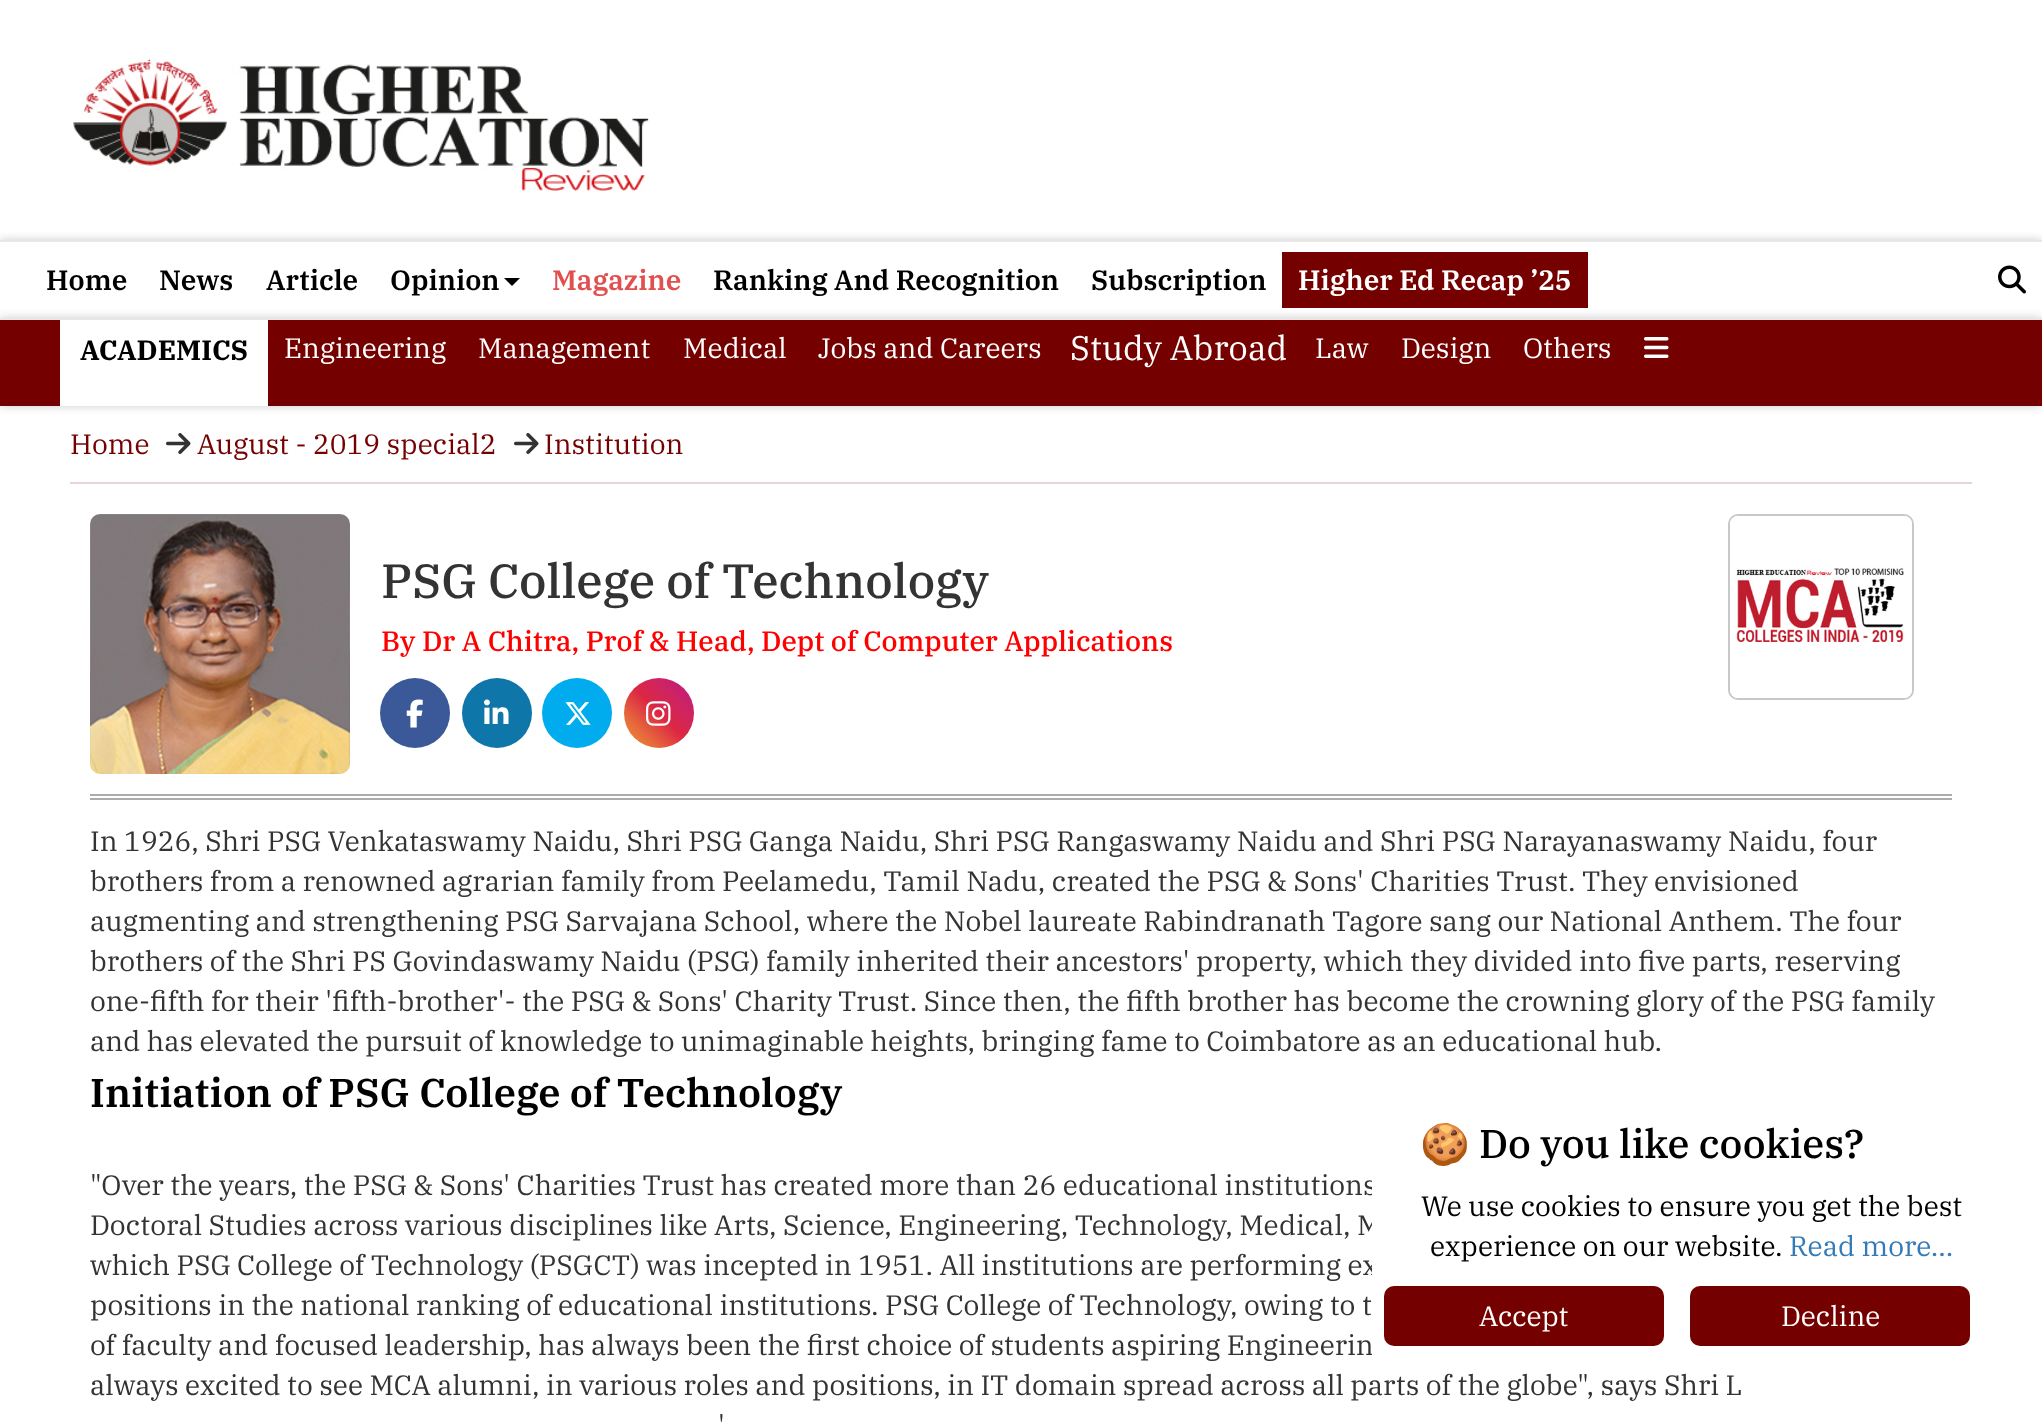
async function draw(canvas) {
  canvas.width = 2042
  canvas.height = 1425
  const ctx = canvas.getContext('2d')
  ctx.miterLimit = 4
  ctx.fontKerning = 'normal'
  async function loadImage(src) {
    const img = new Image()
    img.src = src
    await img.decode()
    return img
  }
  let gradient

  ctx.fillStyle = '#fff'
  ctx.fillRect(0, 0, 2042, 1425)
  ctx.drawImage(await loadImage('image0.png'), 73, 58, 576, 134)
  ctx.save()
  ctx.beginPath()
  ctx.rect(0, 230, 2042, 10)
  ctx.clip()
  ctx.fillStyle = '#ccc'
  ctx.filter = 'blur(5px)'
  ctx.beginPath()
  ctx.rect(0, 240, 2042, 78)
  ctx.fill()
  ctx.filter = 'none'
  ctx.restore()
  ctx.fillStyle = '#e7e7e7'
  ctx.fillRect(0, 240, 2042, 2)
  ctx.font = '600 28px IBM Plex Serif'
  ctx.fillStyle = '#000'
  ctx.fillText('Home', 46, 290)
  ctx.fillText('News', 159, 290)
  ctx.fillText('Article', 266, 290)
  ctx.fillText('Opinion', 390, 290)
  ctx.beginPath()
  ctx.moveTo(504, 278)
  ctx.lineTo(520, 278)
  ctx.lineTo(512, 286)
  ctx.closePath()
  ctx.fill()
  ctx.fillStyle = '#e14f4f'
  ctx.fillText('Magazine', 552, 290)
  ctx.fillStyle = '#000'
  ctx.fillText('Ranking And Recognition', 713, 290)
  ctx.fillText('Subscription', 1091, 290)
  ctx.fillStyle = '#750000'
  ctx.fillRect(1282, 252, 306, 56)
  ctx.fillStyle = '#fff'
  ctx.fillText('Higher Ed Recap ’25', 1298, 290)
  ctx.drawImage(await loadImage('image1.png'), 1998, 265, 28, 29)
  ctx.fillStyle = '#ccc'
  ctx.filter = 'blur(5px)'
  ctx.beginPath()
  ctx.rect(0, 318, 2042, 88)
  ctx.fill()
  ctx.filter = 'none'
  ctx.fillStyle = '#750000'
  ctx.fillRect(0, 320, 2042, 86)
  ctx.fillStyle = '#e7e7e7'
  ctx.fillRect(0, 318, 2042, 2)
  ctx.fillStyle = '#fff'
  ctx.fillRect(60, 320, 208, 86)
  ctx.font = 'bold 28px IBM Plex Serif'
  ctx.fillStyle = '#000'
  ctx.fillText('ACADEMICS', 80, 360)
  ctx.font = '28px IBM Plex Serif'
  ctx.fillStyle = '#fff'
  ctx.fillText('Engineering', 284, 358)
  ctx.fillText('Management', 478, 358)
  ctx.fillText('Medical', 683, 358)
  ctx.fillText('Jobs and Careers', 818, 358)
  ctx.font = '34px IBM Plex Serif'
  ctx.fillText('Study Abroad', 1070, 360)
  ctx.font = '28px IBM Plex Serif'
  ctx.fillText('Law', 1315, 358)
  ctx.fillText('Design', 1401, 358)
  ctx.fillText('Others', 1523, 358)
  ctx.drawImage(await loadImage('image2.png'), 1644, 337, 25, 21)
  ctx.fillStyle = '#e8d4d4'
  ctx.fillRect(70, 482, 1902, 2)
  ctx.fillStyle = '#750000'
  ctx.fillText('Home', 70, 454)
  ctx.drawImage(await loadImage('image3.png'), 166, 433, 25, 21)
  ctx.fillText('August - 2019 special2', 197, 454)
  ctx.drawImage(await loadImage('image3.png'), 514, 433, 25, 21)
  ctx.fillText('Institution', 544, 454)
  ctx.fillStyle = '#acacac'
  ctx.fillRect(90, 794, 1862, 2)
  ctx.fillRect(90, 798, 1862, 2)
  ctx.drawImage(await loadImage('image4.png'), 90, 514, 260, 260)
  ctx.font = '500 48px IBM Plex Serif'
  ctx.fillStyle = '#333'
  ctx.fillText('PSG College of Technology', 381, 598)
  ctx.font = '500 28px IBM Plex Serif'
  ctx.fillStyle = '#f00'
  ctx.fillText('By Dr A Chitra, Prof & Head, Dept of Computer Applications', 381, 651)
  ctx.fillStyle = '#3b5998'
  ctx.beginPath()
  ctx.arc(415, 713, 35, 0, 2 * Math.PI)
  ctx.fill()
  ctx.drawImage(await loadImage('image5.png'), 406, 699, 17, 29)
  ctx.fillStyle = '#0e76a8'
  ctx.beginPath()
  ctx.arc(497, 713, 35, 0, 2 * Math.PI)
  ctx.fill()
  ctx.drawImage(await loadImage('image6.png'), 484, 699, 25, 25)
  ctx.fillStyle = '#00acee'
  ctx.beginPath()
  ctx.arc(577, 713, 35, 0, 2 * Math.PI)
  ctx.fill()
  ctx.drawImage(await loadImage('image7.png'), 565, 702, 26, 23)
  gradient = ctx.createLinearGradient(624, 748, 694, 678)
  gradient.addColorStop(0, '#f09433')
  gradient.addColorStop(0.25, '#e6683c')
  gradient.addColorStop(0.5, '#dc2743')
  gradient.addColorStop(0.75, '#cc2366')
  gradient.addColorStop(1, '#bc1888')
  ctx.fillStyle = gradient
  ctx.beginPath()
  ctx.arc(659, 713, 35, 0, 2 * Math.PI)
  ctx.fill()
  ctx.drawImage(await loadImage('image8.png'), 646, 701, 25, 25)
  ctx.beginPath()
  ctx.roundRect(1729, 515, 184, 184, 9)
  ctx.strokeStyle = '#c9c8c8'
  ctx.lineWidth = 2
  ctx.stroke()
  ctx.drawImage(await loadImage('image9.png'), 1730, 516, 182, 182)
  ctx.font = '28px IBM Plex Serif'
  ctx.fillStyle = '#333'
  ctx.fillText('In 1926, Shri PSG Venkataswamy Naidu, Shri PSG Ganga Naidu, Shri PSG Rangaswamy Naidu and Shri PSG Narayanaswamy Naidu, four', 90, 851)
  ctx.fillText('brothers from a renowned agrarian family from Peelamedu, Tamil Nadu, created the PSG & Sons\' Charities Trust. They envisioned', 90, 891)
  ctx.fillText('augmenting and strengthening PSG Sarvajana School, where the Nobel laureate Rabindranath Tagore sang our National Anthem. The four', 90, 931)
  ctx.fillText('brothers of the Shri PS Govindaswamy Naidu (PSG) family inherited their ancestors\' property, which they divided into five parts, reserving', 90, 971)
  ctx.fillText('one-fifth for their \'fifth-brother\'- the PSG & Sons\' Charity Trust. Since then, the fifth brother has become the crowning glory of the PSG family', 90, 1011)
  ctx.fillText('and has elevated the pursuit of knowledge to unimaginable heights, bringing fame to Coimbatore as an educational hub.', 90, 1051)
  ctx.font = '600 40px IBM Plex Serif'
  ctx.fillStyle = '#000'
  ctx.fillText('Initiation of PSG College of Technology', 90, 1107)
  ctx.font = '28px IBM Plex Serif'
  ctx.fillStyle = '#333'
  ctx.fillText('"Over the years, the PSG & Sons\' Charities Trust has created more than 26 educational institutions', 90, 1195)
  ctx.fillText('Doctoral Studies across various disciplines like Arts, Science, Engineering, Technology, Medical, M', 90, 1235)
  ctx.fillText('which PSG College of Technology (PSGCT) was incepted in 1951. All institutions are performing ex', 90, 1275)
  ctx.fillText('positions in the national ranking of educational institutions. PSG College of Technology, owing to t', 90, 1315)
  ctx.fillText('of faculty and focused leadership, has always been the first choice of students aspiring Engineerin', 90, 1355)
  ctx.fillText('always excited to see MCA alumni, in various roles and positions, in IT domain spread across all parts of the globe", says Shri L', 90, 1395)
  ctx.fillText('\'', 718, 1435)
  ctx.fillStyle = '#fff'
  ctx.fillRect(1372, 1180, 8, 175)
  ctx.font = '40px Noto Color Emoji'
  ctx.fillStyle = '#000'
  ctx.fillText('🍪', 1420, 1158)
  ctx.font = '500 40px IBM Plex Serif'
  ctx.fillText('Do you like cookies?', 1479, 1158)
  ctx.font = '28px IBM Plex Serif'
  ctx.fillText('We use cookies to ensure you get the best', 1421, 1216)
  ctx.fillText('experience on our website.', 1430, 1256)
  ctx.fillStyle = '#337ab7'
  ctx.fillText('Read more...', 1789, 1256)
  ctx.fillStyle = '#750000'
  ctx.beginPath()
  ctx.roundRect(1384, 1286, 280, 60, 10)
  ctx.fill()
  ctx.fillStyle = '#fff'
  ctx.fillText('Accept', 1479, 1326)
  ctx.fillStyle = '#750000'
  ctx.beginPath()
  ctx.roundRect(1690, 1286, 280, 60, 10)
  ctx.fill()
  ctx.fillStyle = '#fff'
  ctx.fillText('Decline', 1781, 1326)
}

draw(document.querySelector('canvas'))
